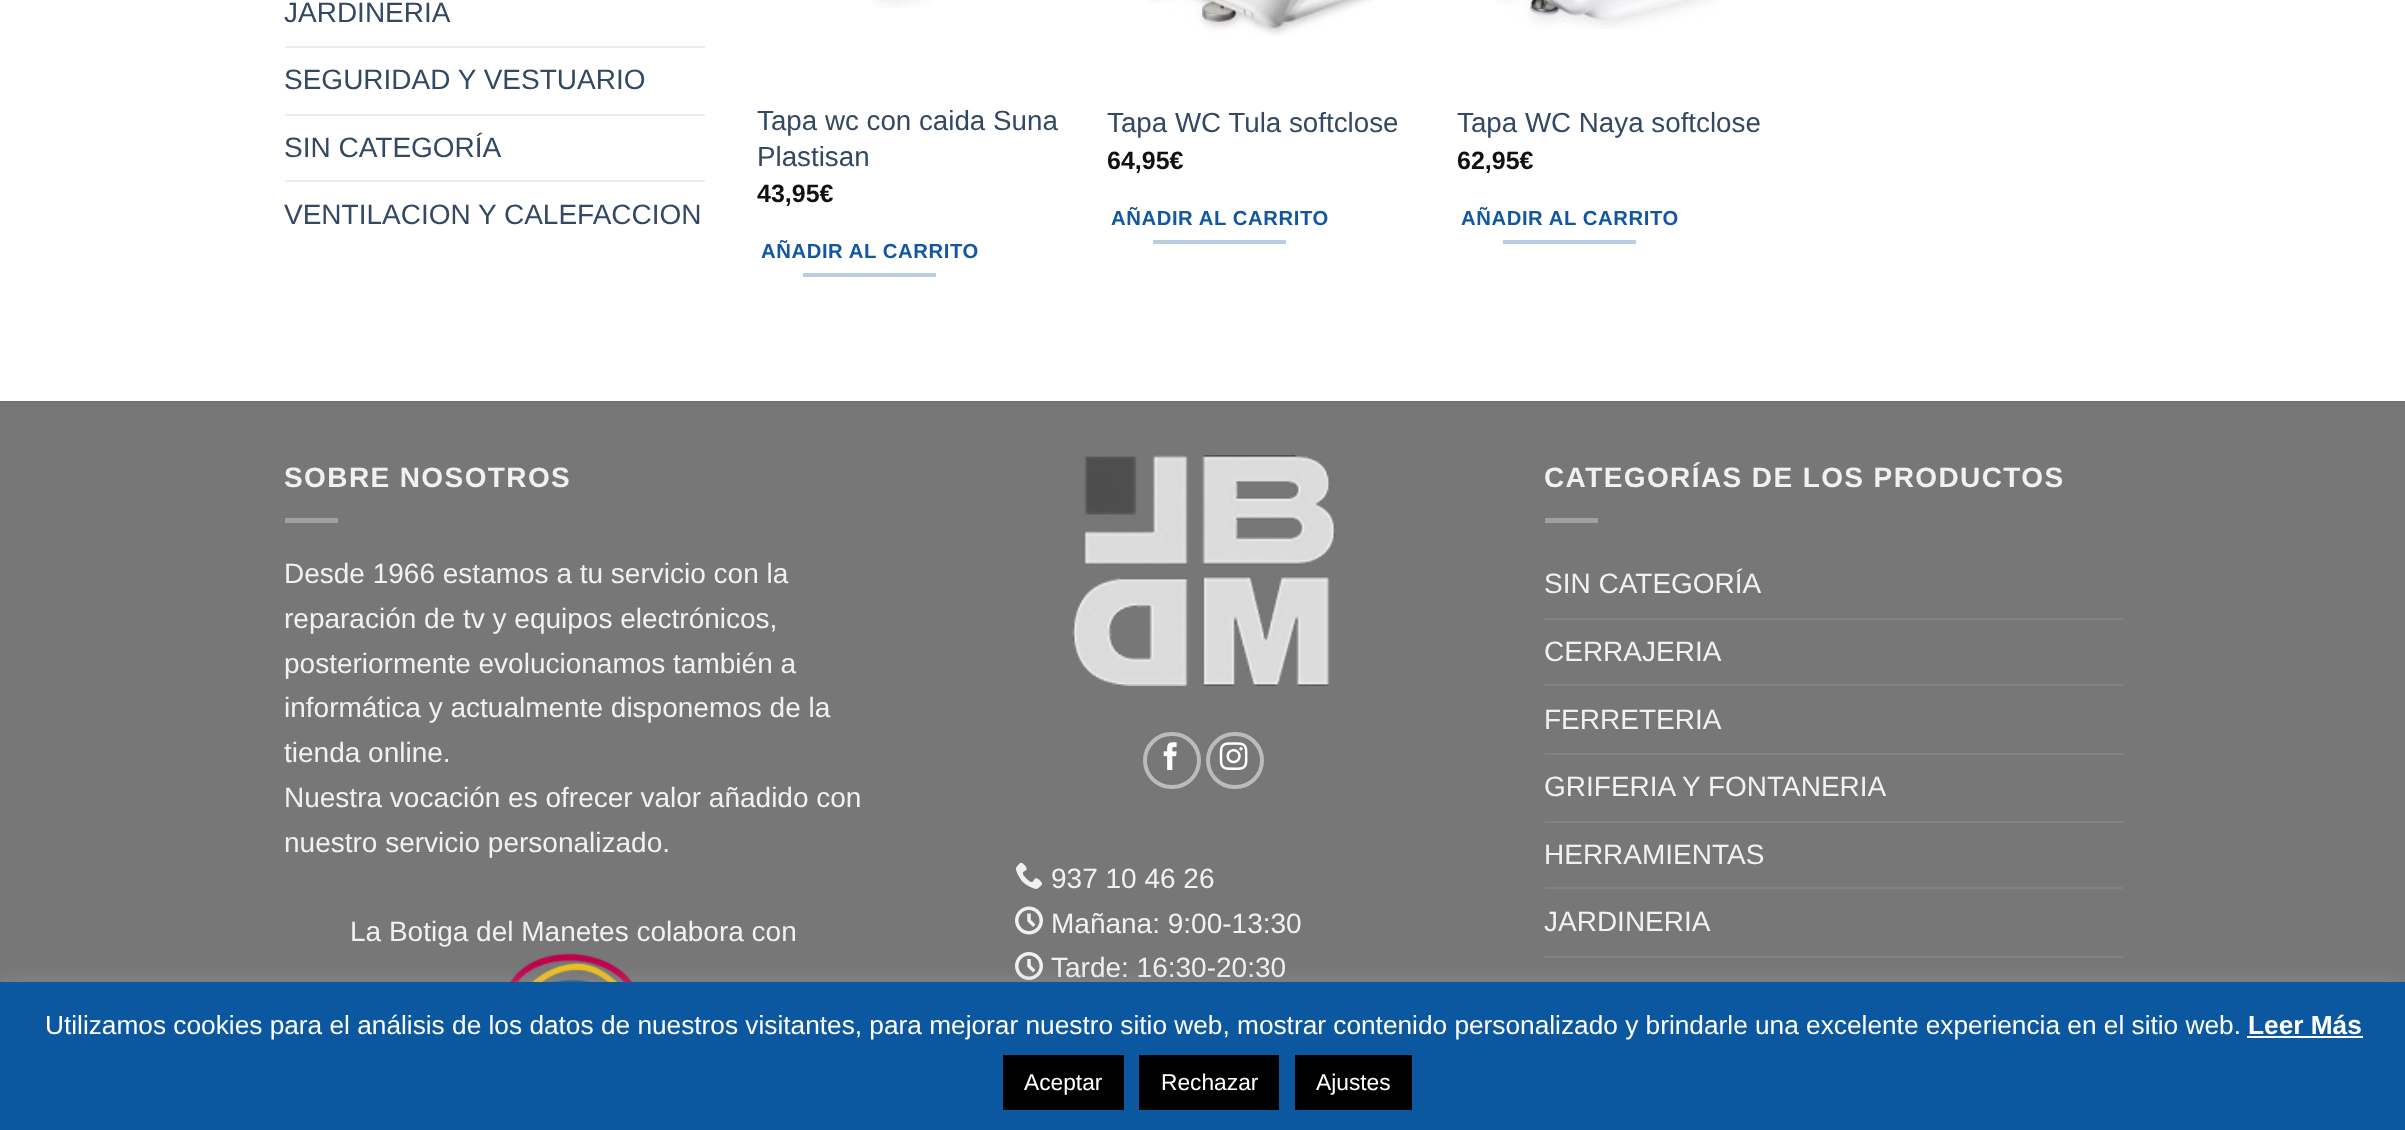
async function draw(canvas) {
  canvas.width = 2405
  canvas.height = 1130
  const ctx = canvas.getContext('2d')
  ctx.miterLimit = 4
  ctx.fontKerning = 'normal'
  async function loadImage(src) {
    const img = new Image()
    img.src = src
    await img.decode()
    return img
  }

  ctx.fillStyle = '#fff'
  ctx.fillRect(0, 0, 2405, 1130)
  ctx.font = '28px Liberation Sans'
  ctx.fillStyle = '#334862'
  ctx.fillText('JARDINERIA', 284, 22)
  ctx.fillStyle = '#ececec'
  ctx.fillRect(285, 46, 420, 2)
  ctx.fillStyle = '#334862'
  ctx.fillText('SEGURIDAD Y VESTUARIO', 284, 89)
  ctx.fillStyle = '#ececec'
  ctx.fillRect(285, 114, 420, 2)
  ctx.fillStyle = '#334862'
  ctx.fillText('SIN CATEGORÍA', 284, 157)
  ctx.fillStyle = '#ececec'
  ctx.fillRect(285, 180, 420, 2)
  ctx.fillStyle = '#334862'
  ctx.fillText('VENTILACION Y CALEFACCION', 284, 224)
  ctx.drawImage(await loadImage('image0.png'), 872, 0, 61, 8)
  ctx.font = '27.75px Liberation Sans'
  ctx.fillText('Tapa wc con caida Suna', 757, 130)
  ctx.fillText('Plastisan', 757, 166)
  ctx.font = 'bold 25px Liberation Sans'
  ctx.fillStyle = '#111'
  ctx.fillText('43,95€', 757, 202)
  ctx.letterSpacing = '0.6px'
  ctx.font = 'bold 20.25px Liberation Sans'
  ctx.fillStyle = '#1157a2'
  ctx.fillText('AÑADIR AL CARRITO', 761, 258)
  ctx.fillStyle = '#b8cde3'
  ctx.fillRect(803, 273, 133, 4)
  ctx.drawImage(await loadImage('image1.png'), 1148, 0, 227, 36)
  ctx.letterSpacing = '0px'
  ctx.font = '27.75px Liberation Sans'
  ctx.fillStyle = '#334862'
  ctx.fillText('Tapa WC Tula softclose', 1107, 132)
  ctx.font = 'bold 25px Liberation Sans'
  ctx.fillStyle = '#111'
  ctx.fillText('64,95€', 1107, 169)
  ctx.letterSpacing = '0.6px'
  ctx.font = 'bold 20.25px Liberation Sans'
  ctx.fillStyle = '#1157a2'
  ctx.fillText('AÑADIR AL CARRITO', 1111, 225)
  ctx.fillStyle = '#b8cde3'
  ctx.fillRect(1153, 240, 133, 4)
  ctx.drawImage(await loadImage('image2.png'), 1496, 0, 222, 29)
  ctx.letterSpacing = '0px'
  ctx.font = '27.75px Liberation Sans'
  ctx.fillStyle = '#334862'
  ctx.fillText('Tapa WC Naya softclose', 1457, 132)
  ctx.font = 'bold 25px Liberation Sans'
  ctx.fillStyle = '#111'
  ctx.fillText('62,95€', 1457, 169)
  ctx.letterSpacing = '0.6px'
  ctx.font = 'bold 20.25px Liberation Sans'
  ctx.fillStyle = '#1157a2'
  ctx.fillText('AÑADIR AL CARRITO', 1461, 225)
  ctx.fillStyle = '#b8cde3'
  ctx.fillRect(1503, 240, 133, 4)
  ctx.fillStyle = '#777'
  ctx.fillRect(0, 403, 2405, 579)
  ctx.fillStyle = '#717171'
  ctx.fillRect(0, 401, 2405, 2)
  ctx.letterSpacing = '1.4px'
  ctx.font = 'bold 28px Liberation Sans'
  ctx.fillStyle = '#f1f1f1'
  ctx.fillText('SOBRE NOSOTROS', 284, 487)
  ctx.fillStyle = '#a0a0a0'
  ctx.fillRect(285, 518, 53, 5)
  ctx.letterSpacing = '0px'
  ctx.font = '28px Liberation Sans'
  ctx.fillStyle = '#f1f1f1'
  ctx.fillText('Desde 1966 estamos a tu servicio con la', 284, 583)
  ctx.fillText('reparación de tv y equipos electrónicos,', 284, 628)
  ctx.fillText('posteriormente evolucionamos también a', 284, 673)
  ctx.fillText('informática y actualmente disponemos de la', 284, 717)
  ctx.fillText('tienda online.', 284, 762)
  ctx.fillText('Nuestra vocación es ofrecer valor añadido con', 284, 807)
  ctx.fillText('nuestro servicio personalizado.', 284, 852)
  ctx.fillText('La Botiga del Manetes colabora con', 350, 941)
  ctx.drawImage(await loadImage('image3.png'), 509, 953, 124, 29)
  ctx.drawImage(await loadImage('image4.png'), 1072, 455, 264, 231)
  ctx.beginPath()
  ctx.roundRect(1145, 734, 54, 53, 26.5)
  ctx.strokeStyle = '#bbb'
  ctx.lineWidth = 4
  ctx.stroke()
  ctx.drawImage(await loadImage('image5.png'), 1163, 742, 14, 28)
  ctx.beginPath()
  ctx.roundRect(1208, 734, 54, 53, 26.5)
  ctx.stroke()
  ctx.drawImage(await loadImage('image6.png'), 1219, 742, 29, 28)
  ctx.drawImage(await loadImage('image7.png'), 1015, 862, 28, 27)
  ctx.fillText('937 10 46 26', 1051, 888)
  ctx.drawImage(await loadImage('image8.png'), 1015, 906, 28, 29)
  ctx.fillText('Mañana: 9:00-13:30', 1051, 933)
  ctx.drawImage(await loadImage('image9.png'), 1015, 952, 28, 28)
  ctx.fillText('Tarde: 16:30-20:30', 1051, 977)
  ctx.letterSpacing = '1.4px'
  ctx.font = 'bold 28px Liberation Sans'
  ctx.fillText('CATEGORÍAS DE LOS PRODUCTOS', 1544, 487)
  ctx.fillStyle = '#a0a0a0'
  ctx.fillRect(1545, 518, 53, 5)
  ctx.letterSpacing = '0px'
  ctx.font = '28px Liberation Sans'
  ctx.fillStyle = '#f1f1f1'
  ctx.fillText('SIN CATEGORÍA', 1544, 593)
  ctx.fillStyle = '#828282'
  ctx.fillRect(1545, 618, 578, 2)
  ctx.fillStyle = '#f1f1f1'
  ctx.fillText('CERRAJERIA', 1544, 661)
  ctx.fillStyle = '#828282'
  ctx.fillRect(1545, 684, 578, 2)
  ctx.fillStyle = '#f1f1f1'
  ctx.fillText('FERRETERIA', 1544, 729)
  ctx.fillStyle = '#828282'
  ctx.fillRect(1545, 753, 578, 2)
  ctx.fillStyle = '#f1f1f1'
  ctx.fillText('GRIFERIA Y FONTANERIA', 1544, 796)
  ctx.fillStyle = '#828282'
  ctx.fillRect(1545, 821, 578, 2)
  ctx.fillStyle = '#f1f1f1'
  ctx.fillText('HERRAMIENTAS', 1544, 864)
  ctx.fillStyle = '#828282'
  ctx.fillRect(1545, 887, 578, 2)
  ctx.fillStyle = '#f1f1f1'
  ctx.fillText('JARDINERIA', 1544, 931)
  ctx.fillStyle = '#828282'
  ctx.fillRect(1545, 956, 578, 2)
  ctx.fillStyle = '#acabab4d'
  ctx.filter = 'blur(9px)'
  ctx.beginPath()
  ctx.rect(0, 980, 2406, 149)
  ctx.fill()
  ctx.filter = 'none'
  ctx.fillStyle = '#0b57a0'
  ctx.fillRect(0, 982, 2405, 148)
  ctx.font = '26.25px Liberation Sans'
  ctx.fillStyle = '#fff'
  ctx.fillText('Utilizamos cookies para el análisis de los datos de nuestros visitantes, para mejorar nuestro sitio web, mostrar contenido personalizado y brindarle una excelente experiencia en el sitio web.', 45, 1034)
  ctx.font = 'bold 26.25px Liberation Sans'
  ctx.fillText('Leer Más', 2248, 1034)
  ctx.fillRect(2247, 1036, 116, 2)
  ctx.fillStyle = '#000'
  ctx.fillRect(1003, 1055, 121, 55)
  ctx.font = '22.75px Liberation Sans'
  ctx.fillStyle = '#fff'
  ctx.fillText('Aceptar', 1024, 1090)
  ctx.fillStyle = '#000'
  ctx.fillRect(1139, 1055, 140, 55)
  ctx.fillStyle = '#fff'
  ctx.fillText('Rechazar', 1161, 1090)
  ctx.fillStyle = '#000'
  ctx.fillRect(1295, 1055, 117, 55)
  ctx.fillStyle = '#fff'
  ctx.fillText('Ajustes', 1316, 1090)
}

draw(document.querySelector('canvas'))
